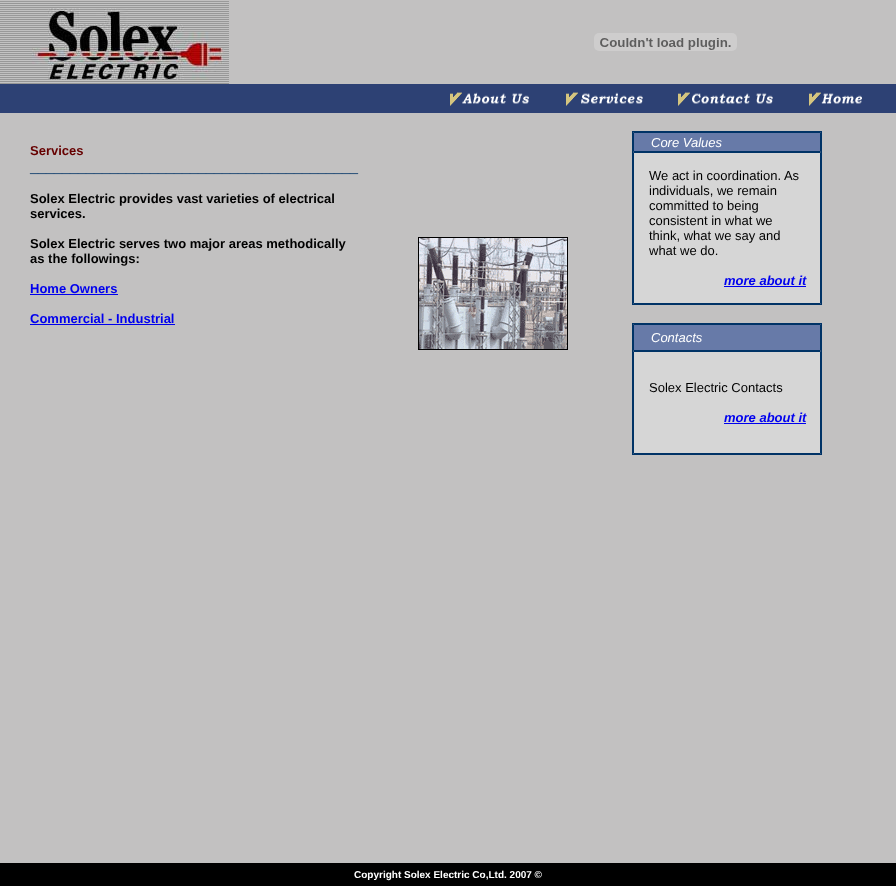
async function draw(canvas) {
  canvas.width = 896
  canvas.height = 886
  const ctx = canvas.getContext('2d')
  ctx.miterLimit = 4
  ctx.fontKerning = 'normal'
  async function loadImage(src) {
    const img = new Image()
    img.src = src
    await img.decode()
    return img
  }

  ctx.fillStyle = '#c2c1c1'
  ctx.fillRect(0, 0, 896, 886)
  ctx.drawImage(await loadImage('image0.png'), 0, 1, 229, 83)
  ctx.drawImage(await loadImage('image1.png'), 594, 33, 143, 18)
  ctx.fillStyle = '#2d4174'
  ctx.fillRect(0, 84, 896, 29)
  ctx.drawImage(await loadImage('image2.png'), 450, 92, 79, 14)
  ctx.drawImage(await loadImage('image3.png'), 566, 92, 77, 14)
  ctx.drawImage(await loadImage('image4.png'), 678, 92, 95, 14)
  ctx.drawImage(await loadImage('image5.png'), 809, 92, 53, 14)
  ctx.font = 'bold 13px Liberation Sans'
  ctx.fillStyle = '#600'
  ctx.fillText('Services', 30, 155)
  ctx.font = '16px Liberation Serif'
  ctx.fillStyle = '#036'
  ctx.fillText('_________________________________________', 30, 172)
  ctx.font = 'bold 13px Liberation Sans'
  ctx.fillStyle = '#000'
  ctx.fillText('Solex Electric provides vast varieties of electrical', 30, 203)
  ctx.fillText('services.', 30, 218)
  ctx.fillText('Solex Electric serves two major areas methodically', 30, 248)
  ctx.fillText('as the followings:', 30, 263)
  ctx.fillStyle = '#00e'
  ctx.fillText('Home Owners', 30, 293)
  ctx.fillRect(30, 294, 88, 1)
  ctx.fillText('Commercial - Industrial', 30, 323)
  ctx.fillRect(30, 324, 145, 1)
  ctx.drawImage(await loadImage('image6.png'), 418, 237, 150, 113)
  ctx.strokeStyle = '#036'
  ctx.strokeRect(632.5, 131.5, 189, 173)
  ctx.fillStyle = '#677aa8'
  ctx.beginPath()
  ctx.rect(633.5, 132.5, 187, 19)
  ctx.fill()
  ctx.stroke()
  ctx.font = 'italic 13px Liberation Sans'
  ctx.fillStyle = '#fff'
  ctx.fillText('Core Values', 651, 147)
  ctx.fillStyle = '#d6d6d6'
  ctx.beginPath()
  ctx.rect(633.5, 152.5, 187, 151)
  ctx.fill()
  ctx.stroke()
  ctx.font = '13px Liberation Sans'
  ctx.fillStyle = '#000'
  ctx.fillText('We act in coordination. As', 649, 180)
  ctx.fillText('individuals, we remain', 649, 195)
  ctx.fillText('committed to being', 649, 210)
  ctx.fillText('consistent in what we', 649, 225)
  ctx.fillText('think, what we say and', 649, 240)
  ctx.fillText('what we do.', 649, 255)
  ctx.font = 'italic bold 13px Liberation Sans'
  ctx.fillStyle = '#00e'
  ctx.fillText('more about it', 724, 285)
  ctx.fillRect(724, 286, 82, 1)
  ctx.strokeRect(632.5, 323.5, 189, 131)
  ctx.fillStyle = '#677aa8'
  ctx.beginPath()
  ctx.rect(633.5, 324.5, 187, 26)
  ctx.fill()
  ctx.stroke()
  ctx.font = 'italic 13px Liberation Sans'
  ctx.fillStyle = '#fff'
  ctx.fillText('Contacts', 651, 342)
  ctx.fillStyle = '#d6d6d6'
  ctx.beginPath()
  ctx.rect(633.5, 351.5, 187, 102)
  ctx.fill()
  ctx.stroke()
  ctx.font = '13px Liberation Sans'
  ctx.fillStyle = '#000'
  ctx.fillText('Solex Electric Contacts', 649, 392)
  ctx.font = 'italic bold 13px Liberation Sans'
  ctx.fillStyle = '#00e'
  ctx.fillText('more about it', 724, 422)
  ctx.fillRect(724, 423, 82, 1)
  ctx.fillStyle = '#000'
  ctx.fillRect(0, 863, 896, 23)
  ctx.font = 'bold 10px Liberation Sans'
  ctx.fillStyle = '#fff'
  ctx.fillText('Copyright Solex Electric Co,Ltd. 2007 ©', 354, 878)
}

draw(document.querySelector('canvas'))
